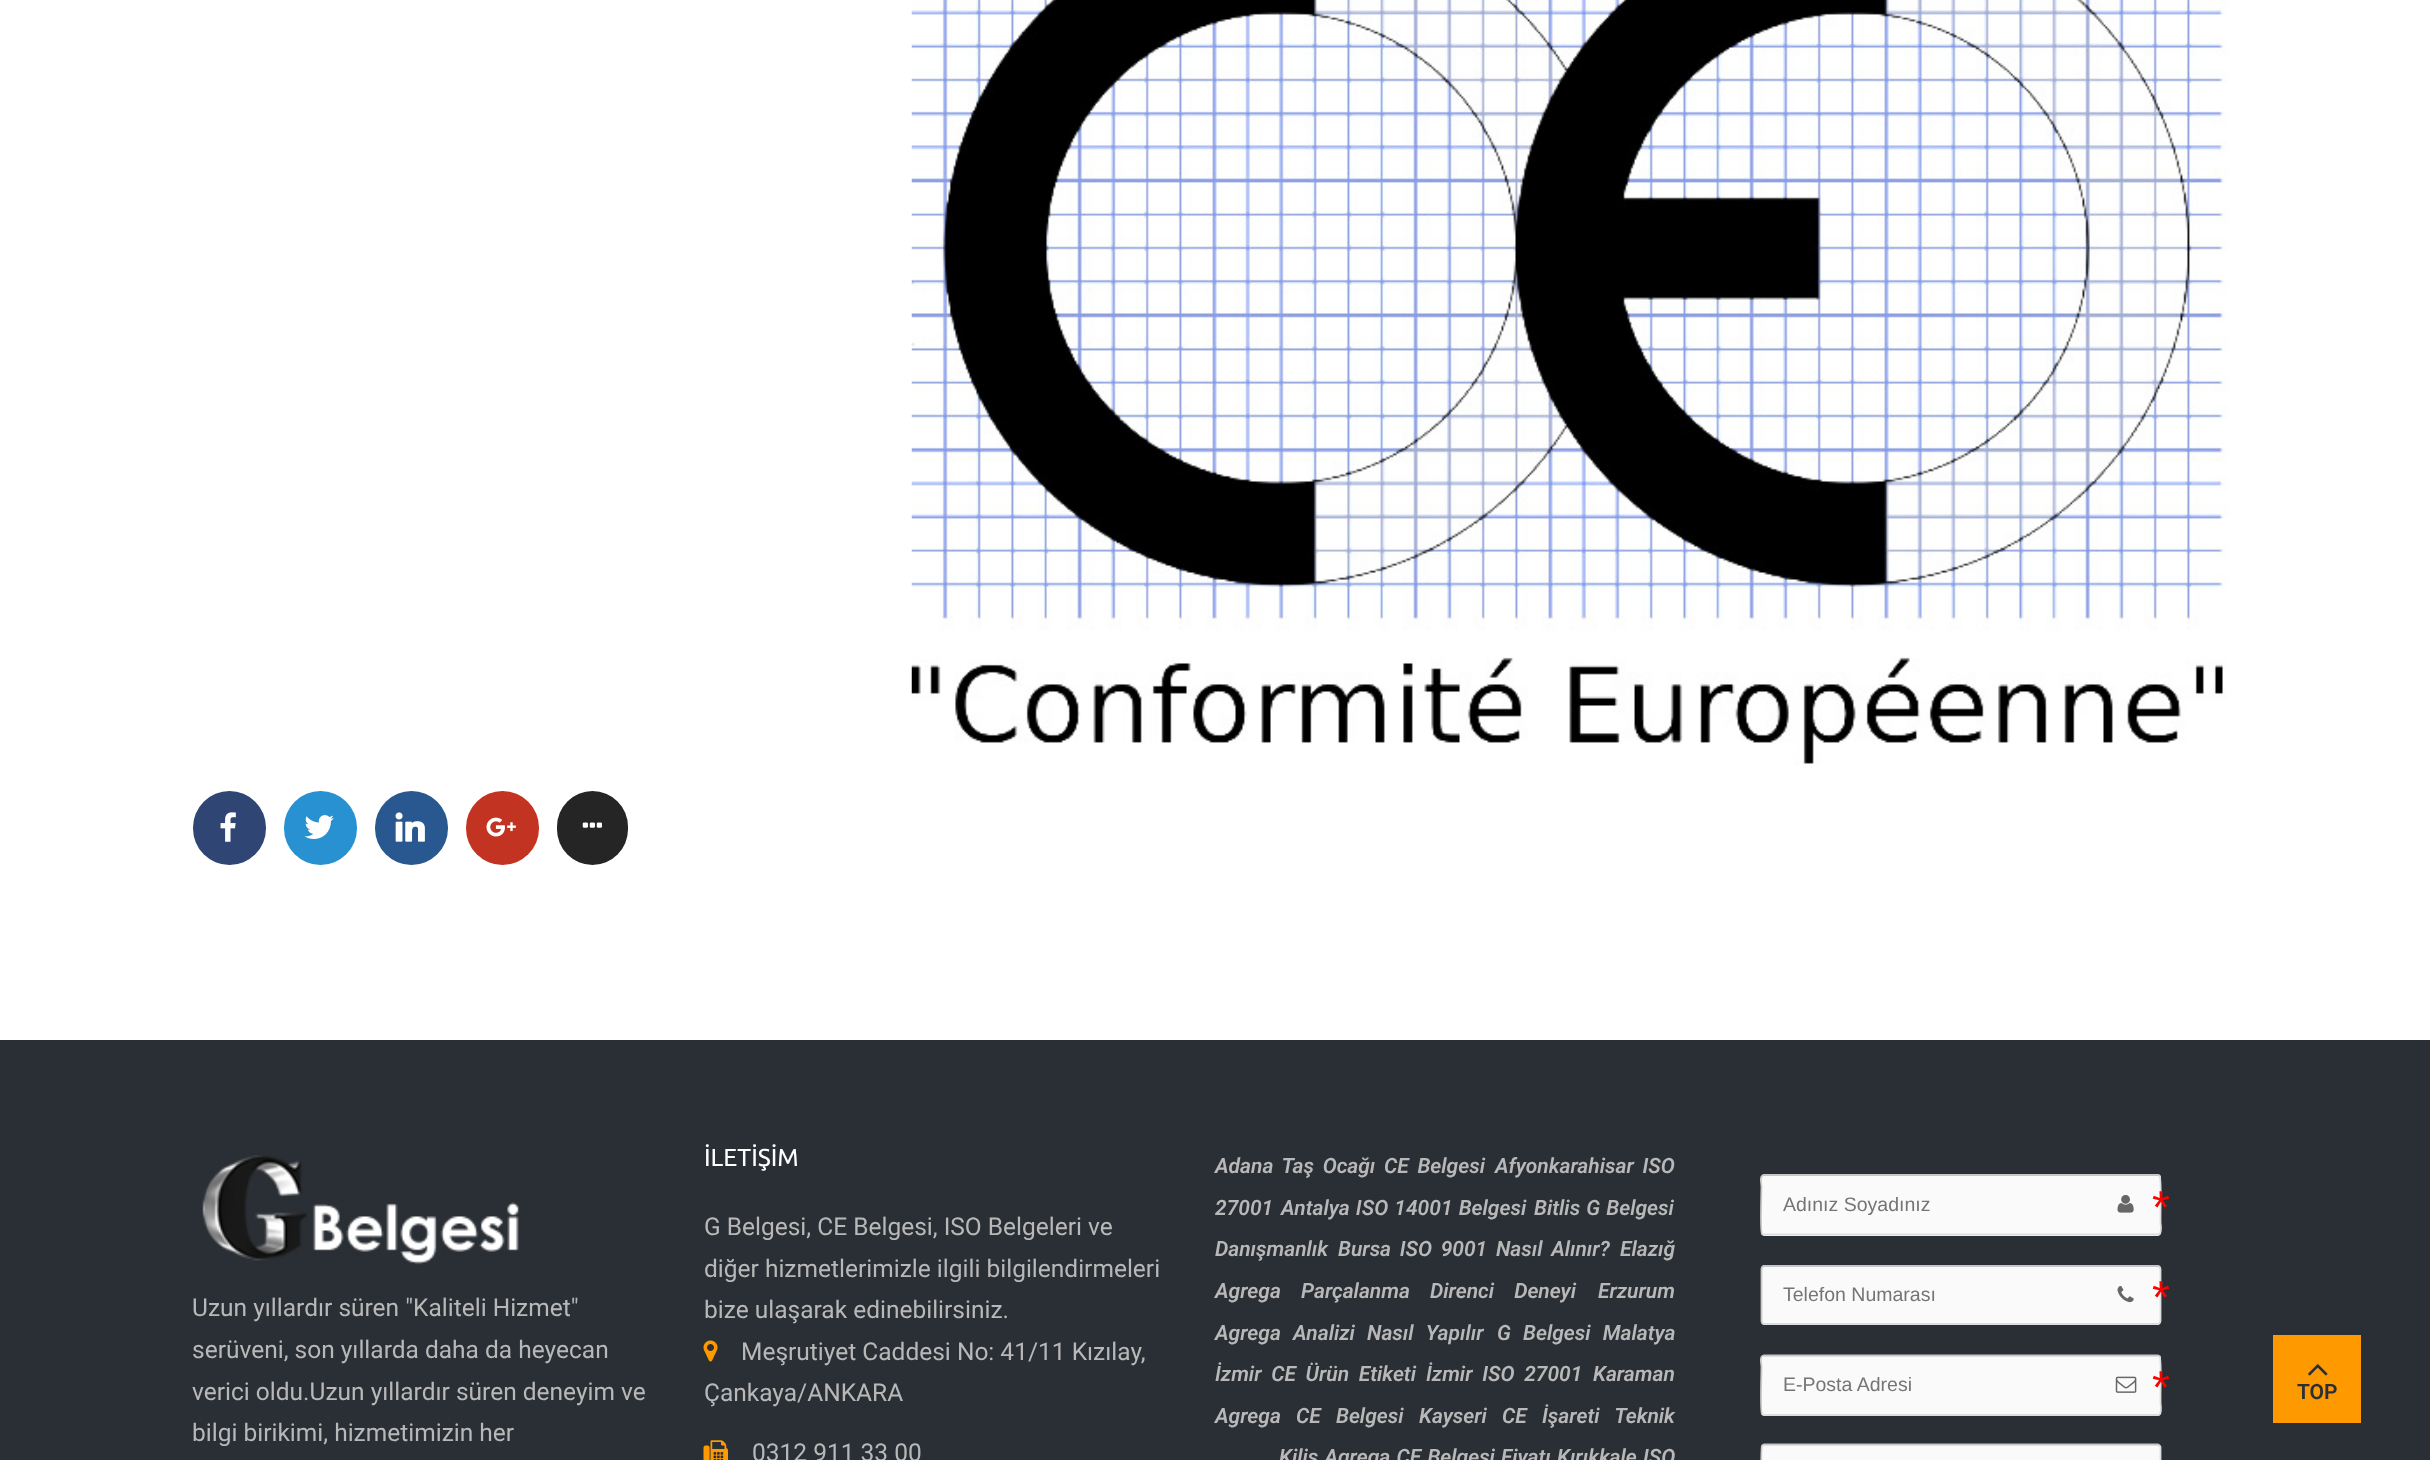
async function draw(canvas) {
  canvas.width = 2430
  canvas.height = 1460
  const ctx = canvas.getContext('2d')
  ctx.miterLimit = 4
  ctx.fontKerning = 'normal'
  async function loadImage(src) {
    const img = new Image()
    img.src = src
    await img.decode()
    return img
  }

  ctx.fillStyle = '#fff'
  ctx.fillRect(0, 0, 2430, 1460)
  ctx.drawImage(await loadImage('image0.png'), 911, 0, 1317, 765)
  ctx.fillStyle = '#2f4574'
  ctx.beginPath()
  ctx.roundRect(193, 791, 73, 74, 36.5)
  ctx.fill()
  ctx.drawImage(await loadImage('image1.png'), 220, 812, 16, 30)
  ctx.fillStyle = '#2791d1'
  ctx.beginPath()
  ctx.roundRect(284, 791, 73, 74, 36.5)
  ctx.fill()
  ctx.drawImage(await loadImage('image2.png'), 304, 815, 30, 24)
  ctx.fillStyle = '#28588f'
  ctx.beginPath()
  ctx.roundRect(375, 791, 73, 74, 36.5)
  ctx.fill()
  ctx.drawImage(await loadImage('image3.png'), 395, 812, 30, 30)
  ctx.fillStyle = '#c23321'
  ctx.beginPath()
  ctx.roundRect(466, 791, 73, 74, 36.5)
  ctx.fill()
  ctx.drawImage(await loadImage('image4.png'), 486, 817, 30, 20)
  ctx.fillStyle = '#252525'
  ctx.beginPath()
  ctx.roundRect(557, 791, 71, 74, 35.5)
  ctx.fill()
  ctx.drawImage(await loadImage('image5.png'), 582, 822, 20, 6)
  ctx.fillStyle = '#2a2f35'
  ctx.fillRect(0, 1040, 2430, 420)
  ctx.drawImage(await loadImage('image6.png'), 202, 1155, 317, 110)
  ctx.font = '24.5px Roboto'
  ctx.fillStyle = '#b8b8b8'
  ctx.fillText('Uzun yıllardır süren "Kaliteli Hizmet"', 192, 1316)
  ctx.fillText('serüveni, son yıllarda daha da heyecan', 192, 1358)
  ctx.fillText('verici oldu.Uzun yıllardır süren deneyim ve', 192, 1400)
  ctx.fillText('bilgi birikimi, hizmetimizin her', 192, 1441)
  ctx.font = '24.5px Ubuntu'
  ctx.fillStyle = '#fff'
  ctx.fillText('İLETİŞİM', 704, 1166)
  ctx.font = '24.5px Roboto'
  ctx.fillStyle = '#b8b8b8'
  ctx.fillText('G Belgesi, CE Belgesi, ISO Belgeleri ve', 704, 1235)
  ctx.fillText('diğer hizmetlerimizle ilgili bilgilendirmeleri', 704, 1277)
  ctx.fillText('bize ulaşarak edinebilirsiniz.', 704, 1318)
  ctx.drawImage(await loadImage('image7.png'), 703, 1340, 15, 22)
  ctx.fillText('Meşrutiyet Caddesi No: 41/11 Kızılay,', 741, 1360)
  ctx.fillText('Çankaya/ANKARA', 704, 1401)
  ctx.drawImage(await loadImage('image8.png'), 703, 1440, 25, 20)
  ctx.fillText('0312 911 33 00', 752, 1461)
  ctx.wordSpacing = '3.5px'
  ctx.font = 'italic 600 21px Roboto'
  ctx.fillText('Adana Taş Ocağı CE Belgesi', 1215, 1173)
  ctx.fillText('Afyonkarahisar ISO', 1495, 1173)
  ctx.wordSpacing = '0px'
  ctx.fillText('27001', 1215, 1215)
  ctx.wordSpacing = '1px'
  ctx.fillText('Antalya ISO 14001 Belgesi', 1281, 1215)
  ctx.fillText('Bitlis G Belgesi', 1534, 1215)
  ctx.wordSpacing = '0px'
  ctx.fillText('Danışmanlık', 1215, 1256)
  ctx.wordSpacing = '3.5px'
  ctx.fillText('Bursa ISO 9001 Nasıl Alınır?', 1338, 1256)
  ctx.wordSpacing = '0px'
  ctx.fillText('Elazığ', 1620, 1256)
  ctx.wordSpacing = '15px'
  ctx.fillText('Agrega Parçalanma Direnci Deneyi', 1215, 1298)
  ctx.wordSpacing = '0px'
  ctx.fillText('Erzurum', 1598, 1298)
  ctx.wordSpacing = '7px'
  ctx.fillText('Agrega Analizi Nasıl Yapılır', 1215, 1340)
  ctx.fillText('G Belgesi Malatya', 1497, 1340)
  ctx.wordSpacing = '4.5px'
  ctx.fillText('İzmir CE Ürün Etiketi', 1215, 1381)
  ctx.fillText('İzmir ISO 27001', 1426, 1381)
  ctx.wordSpacing = '0px'
  ctx.fillText('Karaman', 1593, 1381)
  ctx.wordSpacing = '10px'
  ctx.fillText('Agrega CE Belgesi', 1215, 1423)
  ctx.fillText('Kayseri CE İşareti Teknik', 1419, 1423)
  ctx.wordSpacing = '1px'
  ctx.fillText('Kilis Agrega CE Belgesi Fiyatı', 1279, 1464)
  ctx.fillText('Kırıkkale ISO', 1557, 1464)
  ctx.fillStyle = '#fafafa'
  ctx.beginPath()
  ctx.roundRect(1761, 1174, 400, 62, 4)
  ctx.fill()
  ctx.beginPath()
  ctx.moveTo(1762, 1176)
  ctx.lineTo(1764, 1175)
  ctx.lineTo(2158, 1175)
  ctx.lineTo(2159.5, 1176)
  ctx.strokeStyle = '#c6c6c6'
  ctx.lineWidth = 1.8
  ctx.stroke()
  ctx.beginPath()
  ctx.moveTo(2159.5, 1176)
  ctx.bezierCurveTo(2161.5, 1178, 2160.5, 1209, 2160.5, 1214)
  ctx.lineTo(2160.5, 1223)
  ctx.bezierCurveTo(2160.5, 1223, 2162.5, 1234.5, 2158, 1234.5)
  ctx.lineTo(1764, 1234.5)
  ctx.lineTo(1762, 1234)
  ctx.strokeStyle = '#ddd'
  ctx.stroke()
  ctx.beginPath()
  ctx.moveTo(1762, 1234)
  ctx.bezierCurveTo(1760, 1232, 1761.5, 1192.5, 1761.5, 1187)
  ctx.bezierCurveTo(1761.5, 1183, 1759.5, 1178.5, 1762, 1176)
  ctx.strokeStyle = '#c9c9c9'
  ctx.stroke()
  ctx.wordSpacing = '0px'
  ctx.font = '19.5px Liberation Sans'
  ctx.fillStyle = '#757575'
  ctx.fillText('Adınız Soyadınız', 1783, 1211)
  ctx.drawImage(await loadImage('image9.png'), 2117, 1195, 17, 18)
  ctx.letterSpacing = '-7px'
  ctx.font = '46px Liberation Sans'
  ctx.fillStyle = '#f00'
  ctx.fillText('*', 2152, 1223)
  ctx.fillStyle = '#fafafa'
  ctx.beginPath()
  ctx.roundRect(1761, 1265, 400, 60, 4)
  ctx.fill()
  ctx.beginPath()
  ctx.moveTo(1762, 1267)
  ctx.lineTo(1764, 1266)
  ctx.lineTo(2158, 1266)
  ctx.lineTo(2159.5, 1267)
  ctx.strokeStyle = '#c6c6c6'
  ctx.stroke()
  ctx.beginPath()
  ctx.moveTo(2159.5, 1267)
  ctx.lineTo(2160.5, 1269)
  ctx.lineTo(2160.5, 1321)
  ctx.lineTo(2159.5, 1323)
  ctx.lineTo(2158, 1324)
  ctx.lineTo(1764, 1324)
  ctx.lineTo(1762, 1323)
  ctx.strokeStyle = '#ddd'
  ctx.stroke()
  ctx.beginPath()
  ctx.moveTo(1762, 1323)
  ctx.lineTo(1761.5, 1321)
  ctx.lineTo(1761.5, 1269)
  ctx.lineTo(1762, 1267)
  ctx.strokeStyle = '#c9c9c9'
  ctx.stroke()
  ctx.letterSpacing = '0px'
  ctx.font = '19.5px Liberation Sans'
  ctx.fillStyle = '#757575'
  ctx.fillText('Telefon Numarası', 1783, 1301)
  ctx.drawImage(await loadImage('image10.png'), 2117, 1286, 17, 17)
  ctx.letterSpacing = '-7px'
  ctx.font = '46px Liberation Sans'
  ctx.fillStyle = '#f00'
  ctx.fillText('*', 2152, 1313)
  ctx.fillStyle = '#fafafa'
  ctx.beginPath()
  ctx.roundRect(1761, 1355, 400, 61, 4)
  ctx.fill()
  ctx.beginPath()
  ctx.moveTo(1762, 1356)
  ctx.lineTo(1764, 1355.5)
  ctx.lineTo(2158, 1355.5)
  ctx.lineTo(2159.5, 1356)
  ctx.strokeStyle = '#c6c6c6'
  ctx.stroke()
  ctx.beginPath()
  ctx.moveTo(2159.5, 1356)
  ctx.bezierCurveTo(2161.5, 1358, 2160.5, 1389.5, 2160.5, 1394)
  ctx.lineTo(2160.5, 1403)
  ctx.bezierCurveTo(2160.5, 1403.5, 2162.5, 1415, 2158, 1415)
  ctx.lineTo(1764, 1415)
  ctx.lineTo(1762, 1414)
  ctx.strokeStyle = '#ddd'
  ctx.stroke()
  ctx.beginPath()
  ctx.moveTo(1762, 1414)
  ctx.bezierCurveTo(1760, 1412, 1761.5, 1372.5, 1761.5, 1367)
  ctx.bezierCurveTo(1761.5, 1363.5, 1759.5, 1359, 1762, 1356)
  ctx.strokeStyle = '#c9c9c9'
  ctx.stroke()
  ctx.letterSpacing = '0px'
  ctx.font = '19.5px Liberation Sans'
  ctx.fillStyle = '#757575'
  ctx.fillText('E-Posta Adresi', 1783, 1391)
  ctx.drawImage(await loadImage('image11.png'), 2115, 1376, 22, 17)
  ctx.letterSpacing = '-7px'
  ctx.font = '46px Liberation Sans'
  ctx.fillStyle = '#f00'
  ctx.fillText('*', 2152, 1403)
  ctx.fillStyle = '#fafafa'
  ctx.beginPath()
  ctx.roundRect(1761, 1444, 400, 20, 4)
  ctx.fill()
  ctx.beginPath()
  ctx.moveTo(1762, 1445.5)
  ctx.lineTo(1764, 1444.5)
  ctx.lineTo(2158, 1444.5)
  ctx.lineTo(2159.5, 1445.5)
  ctx.strokeStyle = '#c6c6c6'
  ctx.stroke()
  ctx.beginPath()
  ctx.moveTo(2159.5, 1445.5)
  ctx.lineTo(2160.5, 1447)
  ctx.lineTo(2160.5, 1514.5)
  ctx.bezierCurveTo(2160.5, 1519.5, 2163, 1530.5, 2158, 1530.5)
  ctx.lineTo(1764, 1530.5)
  ctx.lineTo(1762, 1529.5)
  ctx.strokeStyle = '#ddd'
  ctx.stroke()
  ctx.beginPath()
  ctx.moveTo(1762, 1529.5)
  ctx.lineTo(1761.5, 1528)
  ctx.lineTo(1761.5, 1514.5)
  ctx.bezierCurveTo(1761.5, 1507, 1760.5, 1447.5, 1762, 1445.5)
  ctx.strokeStyle = '#c9c9c9'
  ctx.stroke()
  ctx.fillStyle = '#f90'
  ctx.fillRect(2273, 1335, 88, 88)
  ctx.drawImage(await loadImage('image12.png'), 2308, 1364, 20, 12)
  ctx.letterSpacing = '0px'
  ctx.font = '600 21px Roboto'
  ctx.fillStyle = '#2a2f35'
  ctx.fillText('TOP', 2297, 1399)
}

draw(document.querySelector('canvas'))
